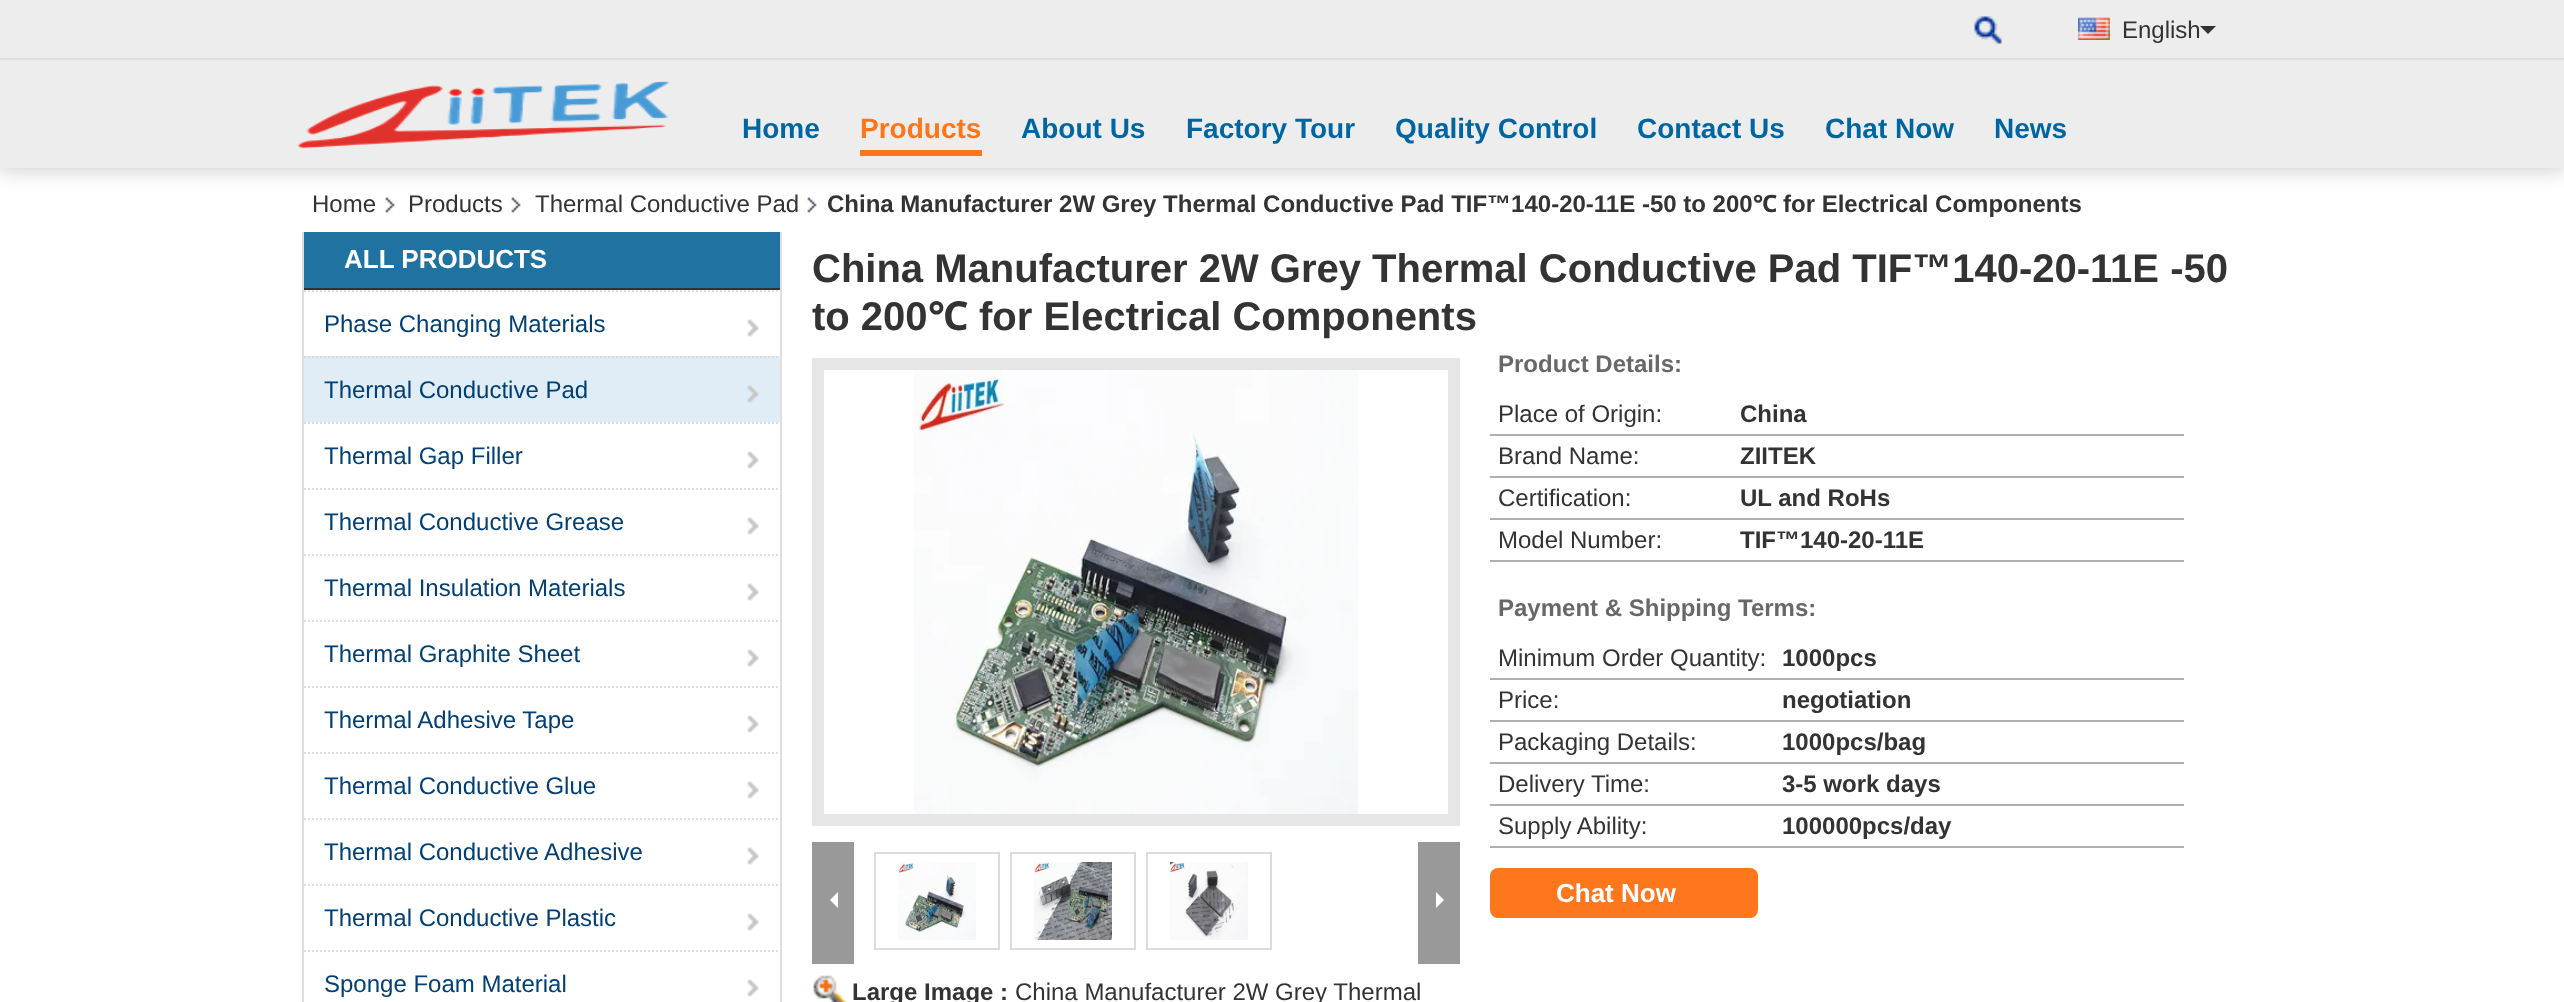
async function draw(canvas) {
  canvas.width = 2564
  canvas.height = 1002
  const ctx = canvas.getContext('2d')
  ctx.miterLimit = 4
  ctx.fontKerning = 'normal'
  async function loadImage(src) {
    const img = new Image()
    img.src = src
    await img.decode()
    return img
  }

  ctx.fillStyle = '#fff'
  ctx.fillRect(0, 0, 2564, 1002)
  ctx.drawImage(await loadImage('image3.png'), 385, 197, 10, 16)
  ctx.drawImage(await loadImage('image3.png'), 511, 197, 10, 16)
  ctx.drawImage(await loadImage('image3.png'), 807, 197, 10, 16)
  ctx.fillStyle = '#00000033'
  ctx.filter = 'blur(10px)'
  ctx.beginPath()
  ctx.rect(-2, -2, 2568, 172)
  ctx.fill()
  ctx.filter = 'none'
  ctx.fillStyle = '#ededed'
  ctx.fillRect(0, 0, 2564, 168)
  ctx.drawImage(await loadImage('image0.png'), 1974, 16, 28, 28)
  ctx.drawImage(await loadImage('image1.png'), 2078, 17, 32, 23)
  ctx.font = '24px Liberation Sans'
  ctx.fillStyle = '#333'
  ctx.fillText('English', 2122, 38)
  ctx.beginPath()
  ctx.moveTo(2200, 26)
  ctx.lineTo(2216, 26)
  ctx.lineTo(2208, 34)
  ctx.closePath()
  ctx.fill()
  ctx.fillStyle = '#dedede'
  ctx.fillRect(0, 58, 2564, 2)
  ctx.drawImage(await loadImage('image2.png'), 297, 81, 373, 68)
  ctx.font = 'bold 28px Liberation Sans'
  ctx.fillStyle = '#0066a1'
  ctx.fillText('Home', 742, 138)
  ctx.fillStyle = '#ff7519'
  ctx.fillRect(860, 150, 122, 6)
  ctx.fillText('Products', 860, 138)
  ctx.fillStyle = '#0066a1'
  ctx.fillText('About Us', 1021, 138)
  ctx.fillText('Factory Tour', 1186, 138)
  ctx.fillText('Quality Control', 1395, 138)
  ctx.fillText('Contact Us', 1637, 138)
  ctx.fillText('Chat Now', 1825, 138)
  ctx.fillText('News', 1994, 138)
  ctx.font = '24px Liberation Sans'
  ctx.fillStyle = '#333'
  ctx.fillText('Home', 312, 212)
  ctx.fillText('Products', 408, 212)
  ctx.fillText('Thermal Conductive Pad', 535, 212)
  ctx.font = 'bold 24px Liberation Sans'
  ctx.fillText('China Manufacturer 2W Grey Thermal Conductive Pad TIF™140-20-11E -50 to 200', 827, 212)
  ctx.font = 'bold 24px Noto Sans'
  ctx.fillText('℃', 1753, 212)
  ctx.font = 'bold 24px Liberation Sans'
  ctx.fillText('for Electrical Components', 1783, 212)
  ctx.fillStyle = '#dedede'
  ctx.fillRect(780, 232, 2, 770)
  ctx.fillRect(302, 232, 2, 770)
  ctx.fillStyle = '#2072a1'
  ctx.fillRect(304, 232, 476, 56)
  ctx.fillStyle = '#313131'
  ctx.fillRect(304, 288, 476, 2)
  ctx.font = 'bold 26px Liberation Sans'
  ctx.fillStyle = '#fff'
  ctx.fillText('ALL PRODUCTS', 344, 268)
  ctx.save()
  ctx.beginPath()
  ctx.rect(304, 232, 476, 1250)
  ctx.clip()
  ctx.beginPath()
  ctx.moveTo(304, 291)
  ctx.lineTo(784, 291)
  ctx.strokeStyle = '#dedede'
  ctx.lineWidth = 2
  ctx.setLineDash([2, 2])
  ctx.stroke()
  ctx.restore()
  ctx.font = '24px Liberation Sans'
  ctx.fillStyle = '#023f74'
  ctx.fillText('Phase Changing Materials', 324, 332)
  ctx.drawImage(await loadImage('image4.png'), 747, 319, 12, 18)
  ctx.fillStyle = '#e0edf6'
  ctx.fillRect(304, 356, 476, 66)
  ctx.save()
  ctx.beginPath()
  ctx.rect(304, 232, 476, 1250)
  ctx.clip()
  ctx.beginPath()
  ctx.moveTo(304, 357)
  ctx.lineTo(784, 357)
  ctx.strokeStyle = '#dedede'
  ctx.lineWidth = 2
  ctx.setLineDash([2, 2])
  ctx.stroke()
  ctx.restore()
  ctx.fillStyle = '#023f74'
  ctx.fillText('Thermal Conductive Pad', 324, 398)
  ctx.drawImage(await loadImage('image5.png'), 747, 385, 12, 18)
  ctx.save()
  ctx.beginPath()
  ctx.rect(304, 232, 476, 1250)
  ctx.clip()
  ctx.beginPath()
  ctx.moveTo(304, 423)
  ctx.lineTo(784, 423)
  ctx.strokeStyle = '#dedede'
  ctx.lineWidth = 2
  ctx.setLineDash([2, 2])
  ctx.stroke()
  ctx.restore()
  ctx.fillText('Thermal Gap Filler', 324, 464)
  ctx.drawImage(await loadImage('image4.png'), 747, 451, 12, 18)
  ctx.save()
  ctx.beginPath()
  ctx.rect(304, 232, 476, 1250)
  ctx.clip()
  ctx.beginPath()
  ctx.moveTo(304, 489)
  ctx.lineTo(784, 489)
  ctx.strokeStyle = '#dedede'
  ctx.lineWidth = 2
  ctx.setLineDash([2, 2])
  ctx.stroke()
  ctx.restore()
  ctx.fillText('Thermal Conductive Grease', 324, 530)
  ctx.drawImage(await loadImage('image4.png'), 747, 517, 12, 18)
  ctx.save()
  ctx.beginPath()
  ctx.rect(304, 232, 476, 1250)
  ctx.clip()
  ctx.beginPath()
  ctx.moveTo(304, 555)
  ctx.lineTo(784, 555)
  ctx.strokeStyle = '#dedede'
  ctx.lineWidth = 2
  ctx.setLineDash([2, 2])
  ctx.stroke()
  ctx.restore()
  ctx.fillText('Thermal Insulation Materials', 324, 596)
  ctx.drawImage(await loadImage('image4.png'), 747, 583, 12, 18)
  ctx.save()
  ctx.beginPath()
  ctx.rect(304, 232, 476, 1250)
  ctx.clip()
  ctx.beginPath()
  ctx.moveTo(304, 621)
  ctx.lineTo(784, 621)
  ctx.strokeStyle = '#dedede'
  ctx.lineWidth = 2
  ctx.setLineDash([2, 2])
  ctx.stroke()
  ctx.restore()
  ctx.fillText('Thermal Graphite Sheet', 324, 662)
  ctx.drawImage(await loadImage('image4.png'), 747, 649, 12, 18)
  ctx.save()
  ctx.beginPath()
  ctx.rect(304, 232, 476, 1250)
  ctx.clip()
  ctx.beginPath()
  ctx.moveTo(304, 687)
  ctx.lineTo(784, 687)
  ctx.strokeStyle = '#dedede'
  ctx.lineWidth = 2
  ctx.setLineDash([2, 2])
  ctx.stroke()
  ctx.restore()
  ctx.fillText('Thermal Adhesive Tape', 324, 728)
  ctx.drawImage(await loadImage('image4.png'), 747, 715, 12, 18)
  ctx.save()
  ctx.beginPath()
  ctx.rect(304, 232, 476, 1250)
  ctx.clip()
  ctx.beginPath()
  ctx.moveTo(304, 753)
  ctx.lineTo(784, 753)
  ctx.strokeStyle = '#dedede'
  ctx.lineWidth = 2
  ctx.setLineDash([2, 2])
  ctx.stroke()
  ctx.restore()
  ctx.fillText('Thermal Conductive Glue', 324, 794)
  ctx.drawImage(await loadImage('image4.png'), 747, 781, 12, 18)
  ctx.save()
  ctx.beginPath()
  ctx.rect(304, 232, 476, 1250)
  ctx.clip()
  ctx.beginPath()
  ctx.moveTo(304, 819)
  ctx.lineTo(784, 819)
  ctx.strokeStyle = '#dedede'
  ctx.lineWidth = 2
  ctx.setLineDash([2, 2])
  ctx.stroke()
  ctx.restore()
  ctx.fillText('Thermal Conductive Adhesive', 324, 860)
  ctx.drawImage(await loadImage('image4.png'), 747, 847, 12, 18)
  ctx.save()
  ctx.beginPath()
  ctx.rect(304, 232, 476, 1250)
  ctx.clip()
  ctx.beginPath()
  ctx.moveTo(304, 885)
  ctx.lineTo(784, 885)
  ctx.strokeStyle = '#dedede'
  ctx.lineWidth = 2
  ctx.setLineDash([2, 2])
  ctx.stroke()
  ctx.restore()
  ctx.fillText('Thermal Conductive Plastic', 324, 926)
  ctx.drawImage(await loadImage('image4.png'), 747, 913, 12, 18)
  ctx.save()
  ctx.beginPath()
  ctx.rect(304, 232, 476, 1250)
  ctx.clip()
  ctx.beginPath()
  ctx.moveTo(304, 951)
  ctx.lineTo(784, 951)
  ctx.strokeStyle = '#dedede'
  ctx.lineWidth = 2
  ctx.setLineDash([2, 2])
  ctx.stroke()
  ctx.restore()
  ctx.fillText('Sponge Foam Material', 324, 992)
  ctx.drawImage(await loadImage('image4.png'), 747, 979, 12, 18)
  ctx.font = 'bold 40px Liberation Sans'
  ctx.fillStyle = '#333'
  ctx.fillText('China Manufacturer 2W Grey Thermal Conductive Pad TIF™140-20-11E -50', 812, 282)
  ctx.fillText('to 200', 812, 330)
  ctx.font = 'bold 40px Noto Sans'
  ctx.fillText('℃', 928, 330)
  ctx.font = 'bold 40px Liberation Sans'
  ctx.fillText('for Electrical Components', 979, 330)
  ctx.font = 'bold 24px Liberation Sans'
  ctx.fillStyle = '#686868'
  ctx.fillText('Product Details:', 1498, 372)
  ctx.font = '24px Liberation Sans'
  ctx.fillStyle = '#333'
  ctx.fillText('Place of Origin:', 1498, 422)
  ctx.fillStyle = '#afafaf'
  ctx.fillRect(1490, 434, 694, 2)
  ctx.font = 'bold 24px Liberation Sans'
  ctx.fillStyle = '#333'
  ctx.fillText('China', 1740, 422)
  ctx.font = '24px Liberation Sans'
  ctx.fillText('Brand Name:', 1498, 464)
  ctx.fillStyle = '#afafaf'
  ctx.fillRect(1490, 476, 694, 2)
  ctx.font = 'bold 24px Liberation Sans'
  ctx.fillStyle = '#333'
  ctx.fillText('ZIITEK', 1740, 464)
  ctx.font = '24px Liberation Sans'
  ctx.fillText('Certification:', 1498, 506)
  ctx.fillStyle = '#afafaf'
  ctx.fillRect(1490, 518, 694, 2)
  ctx.font = 'bold 24px Liberation Sans'
  ctx.fillStyle = '#333'
  ctx.fillText('UL and RoHs', 1740, 506)
  ctx.font = '24px Liberation Sans'
  ctx.fillText('Model Number:', 1498, 548)
  ctx.fillStyle = '#afafaf'
  ctx.fillRect(1490, 560, 694, 2)
  ctx.font = 'bold 24px Liberation Sans'
  ctx.fillStyle = '#333'
  ctx.fillText('TIF™140-20-11E', 1740, 548)
  ctx.fillStyle = '#686868'
  ctx.fillText('Payment & Shipping Terms:', 1498, 616)
  ctx.font = '24px Liberation Sans'
  ctx.fillStyle = '#333'
  ctx.fillText('Minimum Order Quantity:', 1498, 666)
  ctx.fillStyle = '#afafaf'
  ctx.fillRect(1490, 678, 694, 2)
  ctx.font = 'bold 24px Liberation Sans'
  ctx.fillStyle = '#333'
  ctx.fillText('1000pcs', 1782, 666)
  ctx.font = '24px Liberation Sans'
  ctx.fillText('Price:', 1498, 708)
  ctx.fillStyle = '#afafaf'
  ctx.fillRect(1490, 720, 694, 2)
  ctx.font = 'bold 24px Liberation Sans'
  ctx.fillStyle = '#333'
  ctx.fillText('negotiation', 1782, 708)
  ctx.font = '24px Liberation Sans'
  ctx.fillText('Packaging Details:', 1498, 750)
  ctx.fillStyle = '#afafaf'
  ctx.fillRect(1490, 762, 694, 2)
  ctx.font = 'bold 24px Liberation Sans'
  ctx.fillStyle = '#333'
  ctx.fillText('1000pcs/bag', 1782, 750)
  ctx.font = '24px Liberation Sans'
  ctx.fillText('Delivery Time:', 1498, 792)
  ctx.fillStyle = '#afafaf'
  ctx.fillRect(1490, 804, 694, 2)
  ctx.font = 'bold 24px Liberation Sans'
  ctx.fillStyle = '#333'
  ctx.fillText('3-5 work days', 1782, 792)
  ctx.font = '24px Liberation Sans'
  ctx.fillText('Supply Ability:', 1498, 834)
  ctx.fillStyle = '#afafaf'
  ctx.fillRect(1490, 846, 694, 2)
  ctx.font = 'bold 24px Liberation Sans'
  ctx.fillStyle = '#333'
  ctx.fillText('100000pcs/day', 1782, 834)
  ctx.fillStyle = '#ff771c'
  ctx.beginPath()
  ctx.roundRect(1490, 868, 268, 50, 8)
  ctx.fill()
  ctx.font = 'bold 26px Liberation Sans'
  ctx.fillStyle = '#fff'
  ctx.fillText('Chat Now', 1556, 902)
  ctx.strokeStyle = '#e6e6e6'
  ctx.lineWidth = 12
  ctx.strokeRect(818, 364, 636, 456)
  ctx.drawImage(await loadImage('image6.png'), 914, 370, 444, 444)
  ctx.fillStyle = '#999'
  ctx.fillRect(812, 842, 42, 122)
  ctx.fillStyle = '#fff'
  ctx.beginPath()
  ctx.moveTo(838, 892)
  ctx.lineTo(838, 908)
  ctx.lineTo(830, 900)
  ctx.closePath()
  ctx.fill()
  ctx.strokeStyle = '#dcdcdc'
  ctx.lineWidth = 2
  ctx.strokeRect(875, 853, 124, 96)
  ctx.drawImage(await loadImage('image7.png'), 898, 862, 78, 78)
  ctx.strokeRect(1011, 853, 124, 96)
  ctx.drawImage(await loadImage('image8.png'), 1034, 862, 78, 78)
  ctx.strokeRect(1147, 853, 124, 96)
  ctx.drawImage(await loadImage('image9.png'), 1170, 862, 78, 78)
  ctx.fillStyle = '#999'
  ctx.fillRect(1418, 842, 42, 122)
  ctx.fillStyle = '#fff'
  ctx.beginPath()
  ctx.moveTo(1436, 908)
  ctx.lineTo(1436, 892)
  ctx.lineTo(1444, 900)
  ctx.closePath()
  ctx.fill()
  ctx.drawImage(await loadImage('image10.png'), 813, 975, 34, 27)
  ctx.font = 'bold 24px Liberation Sans'
  ctx.fillStyle = '#333'
  ctx.fillText('Large Image :', 852, 1000)
  ctx.font = '24px Liberation Sans'
  ctx.fillText('China Manufacturer 2W Grey Thermal', 1015, 1000)
}

draw(document.querySelector('canvas'))
